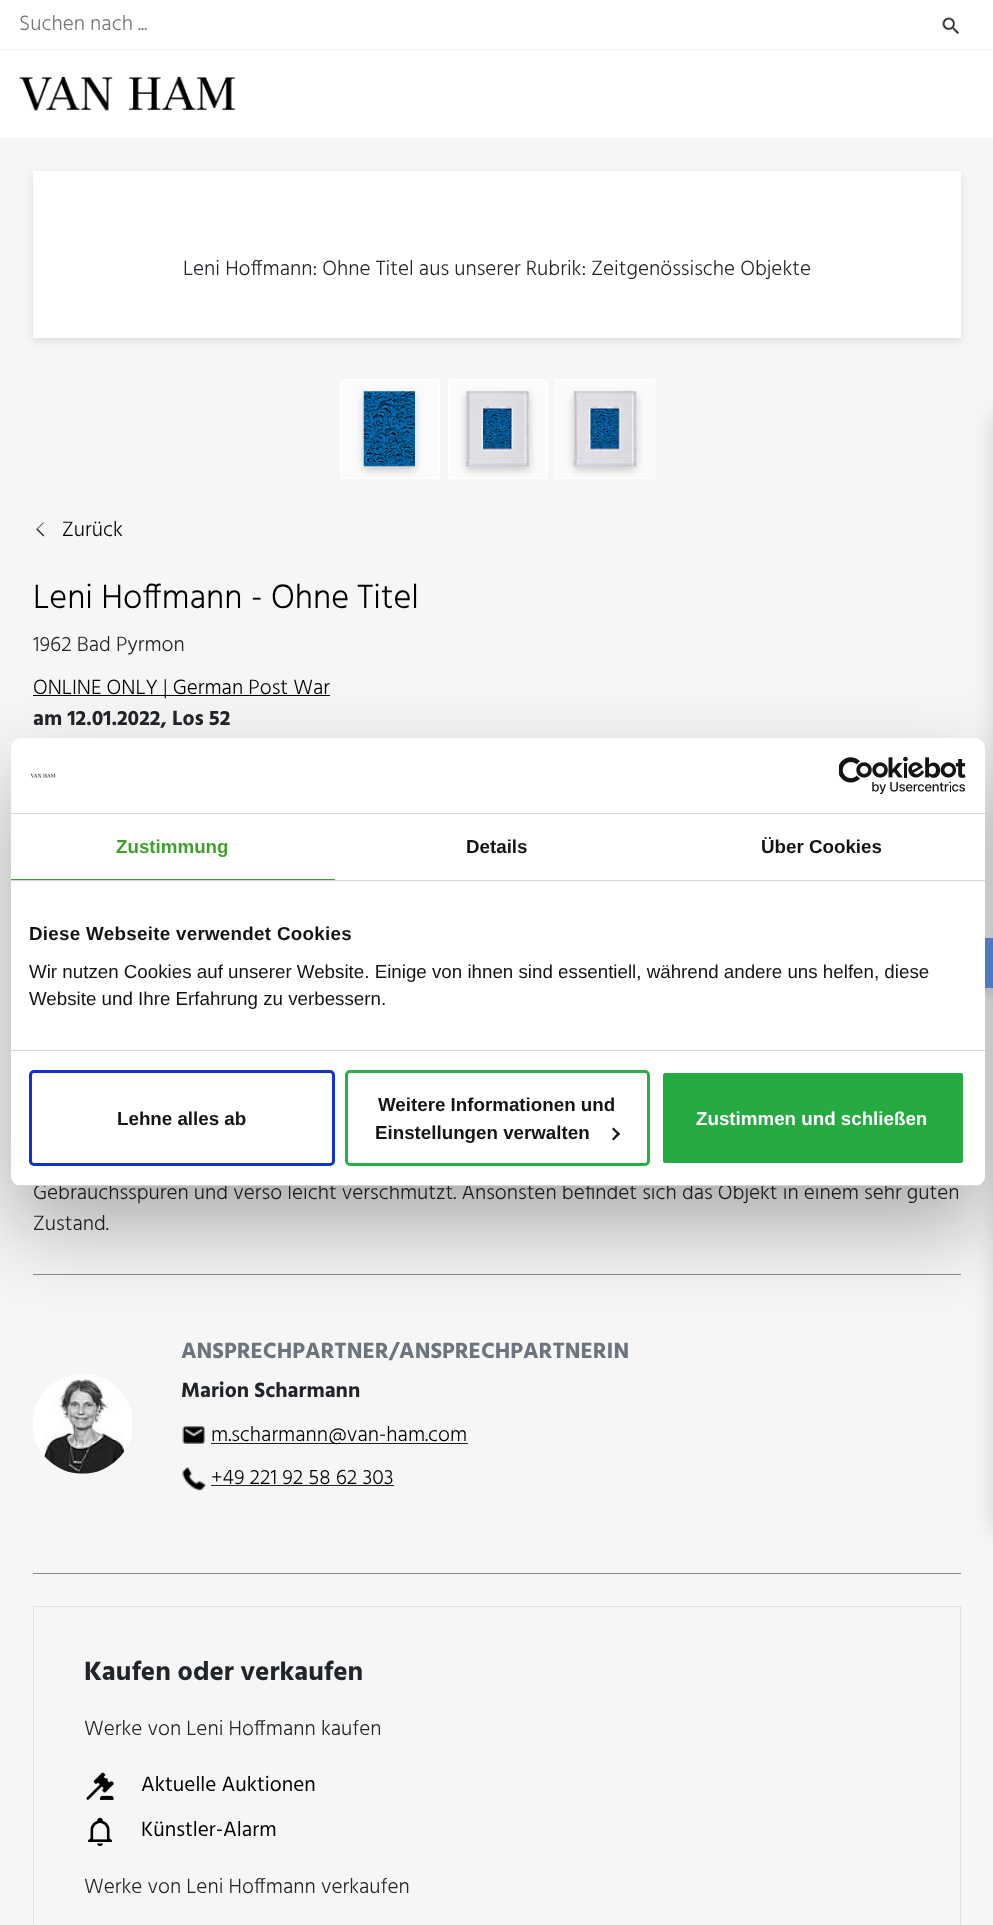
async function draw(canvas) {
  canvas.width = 993
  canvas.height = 1925
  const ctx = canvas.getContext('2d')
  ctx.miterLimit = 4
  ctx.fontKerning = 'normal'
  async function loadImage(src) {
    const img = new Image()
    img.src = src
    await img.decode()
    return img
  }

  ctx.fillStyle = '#fff'
  ctx.fillRect(0, 0, 993, 1925)
  ctx.fillStyle = '#f0f2f2'
  ctx.fillRect(0, 138, 993, 1)
  ctx.fillRect(0, 49, 993, 1)
  ctx.font = '300 21.25px Hind'
  ctx.fillStyle = '#757575'
  ctx.fillText('Suchen nach ...', 19, 30)
  ctx.drawImage(await loadImage('image0.png'), 942, 17, 17, 17)
  ctx.drawImage(await loadImage('image1.png'), 19, 76, 217, 35)
  ctx.fillStyle = '#f6f6f6'
  ctx.fillRect(0, 139, 993, 1786)
  ctx.fillStyle = '#0000001a'
  ctx.filter = 'blur(4px)'
  ctx.beginPath()
  ctx.rect(33, 175, 928, 166)
  ctx.fill()
  ctx.filter = 'none'
  ctx.fillStyle = '#fff'
  ctx.fillRect(33, 171, 928, 167)
  ctx.fillStyle = '#212529'
  ctx.fillText('Leni Hoffmann: Ohne Titel aus unserer Rubrik: Zeitgenössische Objekte', 183, 275)
  ctx.fillStyle = '#fbfbfb'
  ctx.beginPath()
  ctx.rect(340.5, 379.5, 99, 99)
  ctx.fill()
  ctx.strokeStyle = '#fff'
  ctx.stroke()
  ctx.fillStyle = '#00000033'
  ctx.filter = 'blur(4px)'
  ctx.beginPath()
  ctx.rect(364, 395, 51, 75)
  ctx.fill()
  ctx.filter = 'none'
  ctx.drawImage(await loadImage('image2.png'), 363, 391, 52, 76)
  ctx.fillStyle = '#fbfbfb'
  ctx.beginPath()
  ctx.rect(448.5, 379.5, 99, 99)
  ctx.fill()
  ctx.stroke()
  ctx.fillStyle = '#00000033'
  ctx.filter = 'blur(4px)'
  ctx.beginPath()
  ctx.rect(466, 395, 63, 75)
  ctx.fill()
  ctx.filter = 'none'
  ctx.drawImage(await loadImage('image3.png'), 466, 391, 63, 76)
  ctx.fillStyle = '#fbfbfb'
  ctx.beginPath()
  ctx.rect(555.5, 379.5, 99, 99)
  ctx.fill()
  ctx.stroke()
  ctx.fillStyle = '#00000033'
  ctx.filter = 'blur(4px)'
  ctx.beginPath()
  ctx.rect(574, 395, 62, 75)
  ctx.fill()
  ctx.filter = 'none'
  ctx.drawImage(await loadImage('image4.png'), 573, 391, 64, 76)
  ctx.drawImage(await loadImage('image5.png'), 36, 522, 9, 15)
  ctx.fillStyle = '#000'
  ctx.fillText('Zurück', 62, 536)
  ctx.font = '300 34.4px Hind'
  ctx.fillText('Leni Hoffmann - Ohne Titel', 33, 608)
  ctx.font = '300 21.25px Hind'
  ctx.fillStyle = '#212529'
  ctx.fillText('1962 Bad Pyrmon', 33, 651)
  ctx.fillStyle = '#000'
  ctx.fillRect(33, 695, 297, 1)
  ctx.fillText('ONLINE ONLY | German Post War', 33, 694)
  ctx.font = 'bold 21.25px Hind'
  ctx.fillStyle = '#212529'
  ctx.fillText('am 12.01.2022, Los 52', 33, 725)
  ctx.font = '300 21.25px Hind'
  ctx.fillText('Gebrauchsspuren und verso leicht verschmutzt. Ansonsten befindet sich das Objekt in einem sehr guten', 33, 1199)
  ctx.fillText('Zustand.', 33, 1230)
  ctx.fillStyle = '#828d8c'
  ctx.fillRect(33, 1274, 928, 1)
  ctx.fillRect(33, 1573, 928, 1)
  ctx.drawImage(await loadImage('image6.png'), 33, 1374, 99, 100)
  ctx.font = 'bold 22.6px Hind'
  ctx.fillStyle = '#6c757d'
  ctx.fillText('ANSPRECHPARTNER/ANSPRECHPARTNERIN', 181, 1358)
  ctx.font = 'bold 21.25px Hind'
  ctx.fillStyle = '#212529'
  ctx.fillText('Marion Scharmann', 181, 1397)
  ctx.drawImage(await loadImage('image7.png'), 182, 1426, 24, 18)
  ctx.fillRect(211, 1443, 257, 1)
  ctx.font = '300 21.25px Hind'
  ctx.fillStyle = '#000'
  ctx.fillText('m.scharmann@van-ham.com', 211, 1441)
  ctx.drawImage(await loadImage('image8.png'), 182, 1467, 24, 24)
  ctx.fillText('+49 221 92 58 62 303', 211, 1484)
  ctx.fillStyle = '#212529'
  ctx.fillRect(211, 1485, 183, 1)
  ctx.strokeStyle = '#dee2e6'
  ctx.strokeRect(33.5, 1606.5, 927, 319)
  ctx.font = 'bold 27px Hind'
  ctx.fillText('Kaufen oder verkaufen', 84, 1680)
  ctx.font = '300 21.25px Hind'
  ctx.fillText('Werke von Leni Hoffmann kaufen', 84, 1735)
  ctx.drawImage(await loadImage('image9.png'), 86, 1772, 28, 28)
  ctx.font = '21.25px Hind'
  ctx.fillStyle = '#000'
  ctx.fillText('Aktuelle Auktionen', 141, 1791)
  ctx.drawImage(await loadImage('image10.png'), 88, 1817, 25, 29)
  ctx.fillText('Künstler-Alarm', 141, 1836)
  ctx.font = '300 21.25px Hind'
  ctx.fillStyle = '#212529'
  ctx.fillText('Werke von Leni Hoffmann verkaufen', 84, 1893)
  ctx.fillStyle = '#0000001a'
  ctx.filter = 'blur(6px)'
  ctx.beginPath()
  ctx.roundRect(874, 943, 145, 50, 25)
  ctx.fill()
  ctx.filter = 'none'
  ctx.fillStyle = '#6495ed'
  ctx.fillRect(985, 938, 8, 50)
  ctx.fillStyle = '#00000026'
  ctx.filter = 'blur(10.5px)'
  ctx.beginPath()
  ctx.rect(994, 414, 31, 1117)
  ctx.fill()
  ctx.filter = 'none'
  ctx.fillStyle = '#0000004d'
  ctx.filter = 'blur(42.5px)'
  ctx.beginPath()
  ctx.roundRect(11, 778, 974, 448, 10)
  ctx.fill()
  ctx.filter = 'none'
  ctx.fillStyle = '#fff'
  ctx.beginPath()
  ctx.roundRect(11, 738, 974, 448, 10)
  ctx.fill()
  ctx.fillStyle = '#d6d6d6'
  ctx.fillRect(11, 813, 974, 1)
  ctx.drawImage(await loadImage('image11.png'), 30, 773, 26, 5)
  ctx.drawImage(await loadImage('image12.png'), 839, 756, 127, 38)
  ctx.fillRect(11, 880, 974, 1)
  ctx.fillStyle = '#40a02d'
  ctx.fillRect(11, 879, 324, 1)
  ctx.font = 'bold 18.75px Liberation Sans'
  ctx.fillText('Zustimmung', 116, 853)
  ctx.fillStyle = '#141414'
  ctx.fillText('Details', 466, 853)
  ctx.fillText('Über Cookies', 761, 853)
  ctx.fillStyle = '#d6d6d6'
  ctx.fillRect(11, 1050, 974, 1)
  ctx.letterSpacing = '0.3px'
  ctx.fillStyle = '#141414'
  ctx.fillText('Diese Webseite verwendet Cookies', 29, 940)
  ctx.letterSpacing = '0px'
  ctx.font = '18.75px Liberation Sans'
  ctx.fillText('Wir nutzen Cookies auf unserer Website. Einige von ihnen sind essentiell, während andere uns helfen, diese', 29, 978)
  ctx.fillText('Website und Ihre Erfahrung zu verbessern.', 29, 1005)
  ctx.save()
  ctx.beginPath()
  ctx.roundRect(11, 738, 974, 448, 10)
  ctx.clip()
  ctx.fillStyle = '#d6d6d6'
  ctx.fillRect(11, 1185, 974, 1)
  ctx.restore()
  ctx.beginPath()
  ctx.roundRect(30.5, 1071.5, 303, 93, 3.5)
  ctx.strokeStyle = '#1032cf'
  ctx.lineWidth = 3
  ctx.stroke()
  ctx.font = 'bold 18.75px Liberation Sans'
  ctx.fillText('Lehne alles ab', 117, 1125)
  ctx.beginPath()
  ctx.roundRect(346.5, 1071.5, 302, 93, 3.5)
  ctx.strokeStyle = '#2cb045'
  ctx.stroke()
  ctx.fillText('Weitere Informationen und', 378, 1111)
  ctx.fillText('Einstellungen verwalten', 375, 1139)
  ctx.beginPath()
  ctx.moveTo(613.5, 1127.5)
  ctx.lineTo(620, 1134)
  ctx.lineTo(618.5, 1135.5)
  ctx.lineTo(612, 1129)
  ctx.closePath()
  ctx.fill()
  ctx.beginPath()
  ctx.moveTo(618.5, 1132)
  ctx.lineTo(620, 1134)
  ctx.lineTo(613.5, 1140.5)
  ctx.lineTo(612, 1139)
  ctx.closePath()
  ctx.fill()
  ctx.fillStyle = '#26ab43'
  ctx.beginPath()
  ctx.roundRect(661.5, 1071.5, 303, 93, 3.5)
  ctx.fill()
  ctx.strokeStyle = '#fff'
  ctx.stroke()
  ctx.fillStyle = '#fff'
  ctx.fillText('Zustimmen und schließen', 696, 1125)
}

draw(document.querySelector('canvas'))
